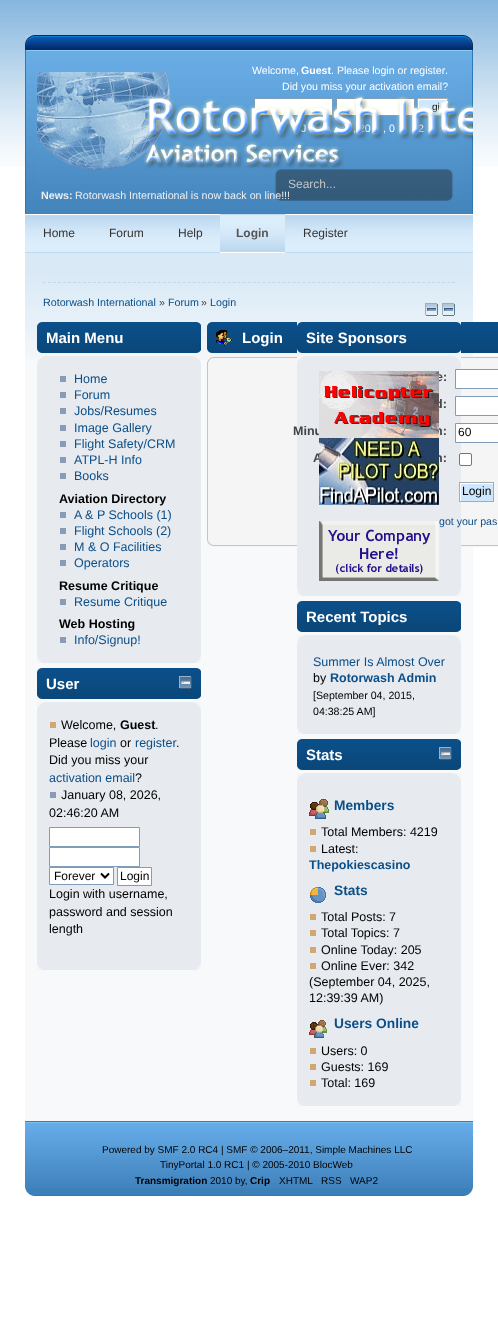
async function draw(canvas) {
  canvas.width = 498
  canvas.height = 1344
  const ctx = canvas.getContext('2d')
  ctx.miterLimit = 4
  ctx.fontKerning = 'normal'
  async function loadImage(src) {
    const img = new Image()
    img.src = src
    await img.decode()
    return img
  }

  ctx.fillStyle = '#fff'
  ctx.fillRect(0, 0, 498, 1344)
  ctx.drawImage(await loadImage('image0.png'), 0, 0, 498, 167)
  ctx.drawImage(await loadImage('image1.png'), 35, 35, 428, 179)
  ctx.drawImage(await loadImage('image2.png'), 25, 35, 10, 179)
  ctx.drawImage(await loadImage('image3.png'), 463, 35, 10, 179)
  ctx.font = '10.6px Liberation Sans'
  ctx.fillText('Welcome,', 252, 74)
  ctx.font = 'bold 10.6px Liberation Sans'
  ctx.fillText('Guest', 301, 74)
  ctx.font = '10.6px Liberation Sans'
  ctx.fillText('. Please login or register', 331, 74)
  ctx.fillText('.', 445, 74)
  ctx.fillText('Did you miss your activation email?', 282, 90)
  ctx.beginPath()
  ctx.rect(254.5, 98.5, 78, 17)
  ctx.fill()
  ctx.strokeStyle = '#7f9db9'
  ctx.stroke()
  ctx.beginPath()
  ctx.rect(336.5, 98.5, 78, 17)
  ctx.fill()
  ctx.stroke()
  ctx.drawImage(await loadImage('image4.png'), 418, 99, 29, 16)
  ctx.strokeStyle = '#aaa'
  ctx.strokeRect(417.5, 98.5, 30, 17)
  ctx.font = '10px Liberation Sans'
  ctx.fillStyle = '#000'
  ctx.fillText('gi', 432, 110)
  ctx.font = '10.6px Liberation Sans'
  ctx.fillStyle = '#fff'
  ctx.fillText('J', 301, 132)
  ctx.fillText(', 20', 353, 132)
  ctx.fillText(', 0', 383, 132)
  ctx.fillText('2', 418, 132)
  ctx.drawImage(await loadImage('image6.png'), 275, 169, 178, 32)
  ctx.drawImage(await loadImage('image5.png'), 37, 72, 436, 98)
  ctx.font = '12px Liberation Sans'
  ctx.fillStyle = '#c4c4c4'
  ctx.fillText('Search...', 288, 188)
  ctx.font = 'bold 10.7px Liberation Sans'
  ctx.fillStyle = '#eee'
  ctx.fillText('News:', 41, 199)
  ctx.font = '10.7px Liberation Sans'
  ctx.fillText('Rotorwash International is now back on line!!!', 75, 199)
  ctx.drawImage(await loadImage('image7.png'), 25, 215, 448, 38)
  ctx.font = '12px Liberation Sans'
  ctx.fillStyle = '#333'
  ctx.fillText('Home', 43, 237)
  ctx.fillText('Forum', 109, 237)
  ctx.fillText('Help', 178, 237)
  ctx.drawImage(await loadImage('image8.png'), 220, 214, 65, 39)
  ctx.font = 'bold 12px Liberation Sans'
  ctx.fillStyle = '#555'
  ctx.fillText('Login', 236, 237)
  ctx.font = '12px Liberation Sans'
  ctx.fillStyle = '#333'
  ctx.fillText('Register', 303, 237)
  ctx.fillStyle = '#f8f9fb'
  ctx.fillRect(25, 360, 448, 761)
  ctx.drawImage(await loadImage('image9.png'), 25, 253, 448, 107)
  ctx.beginPath()
  ctx.moveTo(43, 282.5)
  ctx.lineTo(455, 282.5)
  ctx.strokeStyle = '#bfd9ee'
  ctx.setLineDash([3, 1.99])
  ctx.stroke()
  ctx.font = '10.7px Liberation Sans'
  ctx.fillStyle = '#0b4f89'
  ctx.fillText('Rotorwash International', 43, 306)
  ctx.fillStyle = '#444'
  ctx.fillText('»', 159, 306)
  ctx.fillStyle = '#0b4f89'
  ctx.fillText('Forum', 168, 306)
  ctx.fillStyle = '#444'
  ctx.fillText('»', 201, 306)
  ctx.fillStyle = '#0b4f89'
  ctx.fillText('Login', 210, 306)
  ctx.drawImage(await loadImage('image10.png'), 425, 303, 13, 13)
  ctx.drawImage(await loadImage('image10.png'), 442, 303, 13, 13)
  ctx.drawImage(await loadImage('image11.png'), 37, 322, 159, 31)
  ctx.drawImage(await loadImage('image12.png'), 196, 322, 5, 31)
  ctx.font = 'bold 15px Liberation Sans'
  ctx.fillStyle = '#fff'
  ctx.fillText('Main Menu', 46, 343)
  ctx.fillStyle = '#e7eaef'
  ctx.fillRect(37, 356, 164, 307)
  ctx.drawImage(await loadImage('image13.png'), 37, 356, 8, 8)
  ctx.drawImage(await loadImage('image14.png'), 193, 356, 8, 8)
  ctx.fillStyle = '#899bb7'
  ctx.fillRect(60, 376, 6, 6)
  ctx.font = '12.5px Liberation Sans'
  ctx.fillStyle = '#0b4f89'
  ctx.fillText('Home', 74, 383)
  ctx.fillStyle = '#899bb7'
  ctx.fillRect(60, 392, 6, 6)
  ctx.fillStyle = '#0b4f89'
  ctx.fillText('Forum', 74, 399)
  ctx.fillStyle = '#899bb7'
  ctx.fillRect(60, 408, 6, 6)
  ctx.fillStyle = '#0b4f89'
  ctx.fillText('Jobs/Resumes', 74, 415)
  ctx.fillStyle = '#899bb7'
  ctx.fillRect(60, 425, 6, 6)
  ctx.fillStyle = '#0b4f89'
  ctx.fillText('Image Gallery', 74, 432)
  ctx.fillStyle = '#899bb7'
  ctx.fillRect(60, 441, 6, 6)
  ctx.fillStyle = '#0b4f89'
  ctx.fillText('Flight Safety/CRM', 74, 448)
  ctx.fillStyle = '#899bb7'
  ctx.fillRect(60, 457, 6, 6)
  ctx.fillStyle = '#0b4f89'
  ctx.fillText('ATPL-H Info', 74, 464)
  ctx.fillStyle = '#899bb7'
  ctx.fillRect(60, 473, 6, 6)
  ctx.fillStyle = '#0b4f89'
  ctx.fillText('Books', 74, 480)
  ctx.font = 'bold 12.5px Liberation Sans'
  ctx.fillStyle = '#000'
  ctx.fillText('Aviation Directory', 59, 503)
  ctx.fillStyle = '#899bb7'
  ctx.fillRect(60, 512, 6, 6)
  ctx.font = '12.5px Liberation Sans'
  ctx.fillStyle = '#0b4f89'
  ctx.fillText('A & P Schools (1)', 74, 519)
  ctx.fillStyle = '#899bb7'
  ctx.fillRect(60, 528, 6, 6)
  ctx.fillStyle = '#0b4f89'
  ctx.fillText('Flight Schools (2)', 74, 535)
  ctx.fillStyle = '#899bb7'
  ctx.fillRect(60, 544, 6, 6)
  ctx.fillStyle = '#0b4f89'
  ctx.fillText('M & O Facilities', 74, 551)
  ctx.fillStyle = '#899bb7'
  ctx.fillRect(60, 560, 6, 6)
  ctx.fillStyle = '#0b4f89'
  ctx.fillText('Operators', 74, 567)
  ctx.font = 'bold 12.5px Liberation Sans'
  ctx.fillStyle = '#000'
  ctx.fillText('Resume Critique', 59, 590)
  ctx.fillStyle = '#899bb7'
  ctx.fillRect(60, 599, 6, 6)
  ctx.font = '12.5px Liberation Sans'
  ctx.fillStyle = '#0b4f89'
  ctx.fillText('Resume Critique', 74, 606)
  ctx.font = 'bold 12.5px Liberation Sans'
  ctx.fillStyle = '#000'
  ctx.fillText('Web Hosting', 59, 628)
  ctx.fillStyle = '#899bb7'
  ctx.fillRect(60, 637, 6, 6)
  ctx.font = '12.5px Liberation Sans'
  ctx.fillStyle = '#0b4f89'
  ctx.fillText('Info/Signup!', 74, 644)
  ctx.drawImage(await loadImage('image15.png'), 37, 656, 5, 7)
  ctx.drawImage(await loadImage('image16.png'), 196, 656, 5, 7)
  ctx.drawImage(await loadImage('image11.png'), 37, 668, 159, 31)
  ctx.drawImage(await loadImage('image12.png'), 196, 668, 5, 31)
  ctx.font = 'bold 15px Liberation Sans'
  ctx.fillStyle = '#fff'
  ctx.fillText('User', 46, 689)
  ctx.drawImage(await loadImage('image17.png'), 179, 676, 13, 13)
  ctx.fillStyle = '#e7eaef'
  ctx.fillRect(37, 702, 164, 268)
  ctx.drawImage(await loadImage('image13.png'), 37, 702, 8, 8)
  ctx.drawImage(await loadImage('image14.png'), 193, 702, 8, 8)
  ctx.fillStyle = '#ceaa72'
  ctx.fillRect(50, 722, 6, 6)
  ctx.font = '12.5px Liberation Sans'
  ctx.fillStyle = '#000'
  ctx.fillText('Welcome,', 61, 729)
  ctx.font = 'bold 12.5px Liberation Sans'
  ctx.fillText('Guest', 120, 729)
  ctx.font = '12.5px Liberation Sans'
  ctx.fillText('.', 155, 729)
  ctx.fillText('Please', 49, 747)
  ctx.fillStyle = '#0b4f89'
  ctx.fillText('login', 90, 747)
  ctx.fillStyle = '#000'
  ctx.fillText('or', 120, 747)
  ctx.fillStyle = '#0b4f89'
  ctx.fillText('register', 135, 747)
  ctx.fillStyle = '#000'
  ctx.fillText('.', 176, 747)
  ctx.fillText('Did you miss your', 49, 764)
  ctx.fillStyle = '#0b4f89'
  ctx.fillText('activation email', 49, 782)
  ctx.fillStyle = '#000'
  ctx.fillText('?', 135, 782)
  ctx.fillStyle = '#899bb7'
  ctx.fillRect(50, 792, 6, 6)
  ctx.fillStyle = '#000'
  ctx.fillText('January 08, 2026,', 61, 799)
  ctx.fillText('02:46:20 AM', 49, 817)
  ctx.fillStyle = '#fff'
  ctx.beginPath()
  ctx.rect(49.5, 827.5, 90, 19)
  ctx.fill()
  ctx.strokeStyle = '#7f9db9'
  ctx.setLineDash([])
  ctx.stroke()
  ctx.beginPath()
  ctx.rect(49.5, 847.5, 90, 19)
  ctx.fill()
  ctx.stroke()
  ctx.beginPath()
  ctx.rect(49.5, 867.5, 64, 17)
  ctx.fill()
  ctx.stroke()
  ctx.beginPath()
  ctx.moveTo(101, 873.5)
  ctx.lineTo(105, 877.5)
  ctx.lineTo(109, 873.5)
  ctx.strokeStyle = '#000'
  ctx.lineWidth = 2
  ctx.stroke()
  ctx.font = '12px Liberation Sans'
  ctx.fillStyle = '#000'
  ctx.fillText('Forever', 54, 880)
  ctx.fillStyle = '#fff'
  ctx.beginPath()
  ctx.rect(117.5, 867.5, 34, 18)
  ctx.fill()
  ctx.strokeStyle = '#7f9db9'
  ctx.lineWidth = 1
  ctx.stroke()
  ctx.fillStyle = '#000'
  ctx.fillText('Login', 120, 880)
  ctx.font = '12.5px Liberation Sans'
  ctx.fillText('Login with username,', 49, 898)
  ctx.fillText('password and session', 49, 916)
  ctx.fillText('length', 49, 933)
  ctx.drawImage(await loadImage('image15.png'), 37, 963, 5, 7)
  ctx.drawImage(await loadImage('image16.png'), 196, 963, 5, 7)
  ctx.drawImage(await loadImage('image18.png'), 207, 322, 291, 31)
  ctx.drawImage(await loadImage('image19.png'), 216, 330, 16, 16)
  ctx.font = 'bold 15px Liberation Sans'
  ctx.fillStyle = '#fff'
  ctx.fillText('Login', 242, 343)
  ctx.drawImage(await loadImage('image20.png'), 207, 356, 291, 12)
  ctx.fillStyle = '#f5f5f5'
  ctx.fillRect(208, 368, 290, 167)
  ctx.fillStyle = '#c4c4c4'
  ctx.fillRect(207, 368, 1, 167)
  ctx.drawImage(await loadImage('image22.png'), 207, 535, 291, 12)
  ctx.fillStyle = '#e7eaef'
  ctx.fillRect(297, 356, 164, 240)
  ctx.font = 'bold 12.5px Liberation Sans'
  ctx.fillStyle = '#444'
  ctx.fillText('e:', 436, 381)
  ctx.fillStyle = '#fff'
  ctx.beginPath()
  ctx.rect(455.5, 369.5, 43, 19)
  ctx.fill()
  ctx.stroke()
  ctx.fillStyle = '#444'
  ctx.fillText('d:', 435, 408)
  ctx.fillStyle = '#fff'
  ctx.beginPath()
  ctx.rect(455.5, 396.5, 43, 19)
  ctx.fill()
  ctx.stroke()
  ctx.fillStyle = '#444'
  ctx.fillText('Minu', 293, 435)
  ctx.fillText('n:', 435, 435)
  ctx.fillStyle = '#fff'
  ctx.beginPath()
  ctx.rect(455.5, 423.5, 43, 19)
  ctx.fill()
  ctx.stroke()
  ctx.font = '12px Liberation Sans'
  ctx.fillStyle = '#000'
  ctx.fillText('60', 458, 436)
  ctx.font = 'bold 12.5px Liberation Sans'
  ctx.fillStyle = '#444'
  ctx.fillText('A', 313, 462)
  ctx.fillText('n:', 435, 462)
  ctx.fillStyle = '#fff'
  ctx.beginPath()
  ctx.roundRect(459.5, 453.5, 12, 12, 1.5)
  ctx.fill()
  ctx.strokeStyle = '#767676'
  ctx.stroke()
  ctx.drawImage(await loadImage('image21.png'), 460, 483, 33, 18)
  ctx.strokeStyle = '#aaa'
  ctx.strokeRect(459.5, 482.5, 34, 19)
  ctx.font = '12px Liberation Sans'
  ctx.fillStyle = '#000'
  ctx.fillText('Login', 462, 495)
  ctx.font = '10.6px Liberation Sans'
  ctx.fillStyle = '#0b4f89'
  ctx.fillText('got your pas', 439, 525)
  ctx.drawImage(await loadImage('image23.png'), 297, 322, 5, 31)
  ctx.drawImage(await loadImage('image12.png'), 456, 322, 5, 31)
  ctx.font = 'bold 15px Liberation Sans'
  ctx.fillStyle = '#fff'
  ctx.fillText('Site Sponsors', 306, 343)
  ctx.drawImage(await loadImage('image13.png'), 297, 356, 8, 8)
  ctx.drawImage(await loadImage('image14.png'), 453, 356, 8, 8)
  ctx.drawImage(await loadImage('image24.png'), 319, 371, 120, 67)
  ctx.drawImage(await loadImage('image25.png'), 319, 438, 120, 67)
  ctx.drawImage(await loadImage('image26.png'), 319, 521, 120, 60)
  ctx.drawImage(await loadImage('image15.png'), 297, 589, 5, 7)
  ctx.drawImage(await loadImage('image16.png'), 456, 589, 5, 7)
  ctx.drawImage(await loadImage('image11.png'), 297, 601, 159, 31)
  ctx.drawImage(await loadImage('image12.png'), 456, 601, 5, 31)
  ctx.fillText('Recent Topics', 306, 622)
  ctx.fillStyle = '#e7eaef'
  ctx.fillRect(297, 635, 164, 99)
  ctx.drawImage(await loadImage('image13.png'), 297, 635, 8, 8)
  ctx.drawImage(await loadImage('image14.png'), 453, 635, 8, 8)
  ctx.font = '12.5px Liberation Sans'
  ctx.fillStyle = '#0b4f89'
  ctx.fillText('Summer Is Almost Over', 313, 666)
  ctx.fillStyle = '#000'
  ctx.fillText('by', 313, 682)
  ctx.font = 'bold 12.5px Liberation Sans'
  ctx.fillStyle = '#0b4f89'
  ctx.fillText('Rotorwash Admin', 330, 682)
  ctx.font = '10.6px Liberation Sans'
  ctx.fillStyle = '#000'
  ctx.fillText('[September 04, 2015,', 313, 699)
  ctx.fillText('04:38:25 AM]', 313, 715)
  ctx.drawImage(await loadImage('image15.png'), 297, 727, 5, 7)
  ctx.drawImage(await loadImage('image16.png'), 456, 727, 5, 7)
  ctx.drawImage(await loadImage('image11.png'), 297, 739, 159, 31)
  ctx.drawImage(await loadImage('image12.png'), 456, 739, 5, 31)
  ctx.font = 'bold 15px Liberation Sans'
  ctx.fillStyle = '#fff'
  ctx.fillText('Stats', 306, 760)
  ctx.drawImage(await loadImage('image17.png'), 439, 747, 13, 13)
  ctx.fillStyle = '#e7eaef'
  ctx.fillRect(297, 773, 164, 333)
  ctx.drawImage(await loadImage('image13.png'), 297, 773, 8, 8)
  ctx.drawImage(await loadImage('image14.png'), 453, 773, 8, 8)
  ctx.drawImage(await loadImage('image27.png'), 309, 799, 20, 20)
  ctx.font = 'bold 13.75px Liberation Sans'
  ctx.fillStyle = '#0b4f89'
  ctx.fillText('Members', 334, 810)
  ctx.fillStyle = '#ceaa72'
  ctx.fillRect(310, 829, 6, 6)
  ctx.font = '12.5px Liberation Sans'
  ctx.fillStyle = '#000'
  ctx.fillText('Total Members: 4219', 321, 836)
  ctx.fillStyle = '#ceaa72'
  ctx.fillRect(310, 846, 6, 6)
  ctx.fillStyle = '#000'
  ctx.fillText('Latest:', 321, 853)
  ctx.font = 'bold 12.5px Liberation Sans'
  ctx.fillStyle = '#0b4f89'
  ctx.fillText('Thepokiescasino', 309, 869)
  ctx.drawImage(await loadImage('image28.png'), 310, 887, 16, 16)
  ctx.font = 'bold 13.75px Liberation Sans'
  ctx.fillText('Stats', 334, 895)
  ctx.fillStyle = '#ceaa72'
  ctx.fillRect(310, 914, 6, 6)
  ctx.font = '12.5px Liberation Sans'
  ctx.fillStyle = '#000'
  ctx.fillText('Total Posts: 7', 321, 921)
  ctx.fillStyle = '#ceaa72'
  ctx.fillRect(310, 930, 6, 6)
  ctx.fillStyle = '#000'
  ctx.fillText('Total Topics: 7', 321, 937)
  ctx.fillStyle = '#ceaa72'
  ctx.fillRect(310, 947, 6, 6)
  ctx.fillStyle = '#000'
  ctx.fillText('Online Today: 205', 321, 954)
  ctx.fillStyle = '#ceaa72'
  ctx.fillRect(310, 963, 6, 6)
  ctx.fillStyle = '#000'
  ctx.fillText('Online Ever: 342', 321, 970)
  ctx.fillText('(September 04, 2025,', 309, 986)
  ctx.fillText('12:39:39 AM)', 309, 1002)
  ctx.drawImage(await loadImage('image29.png'), 309, 1020, 18, 18)
  ctx.font = 'bold 13.75px Liberation Sans'
  ctx.fillStyle = '#0b4f89'
  ctx.fillText('Users Online', 334, 1028)
  ctx.fillStyle = '#ceaa72'
  ctx.fillRect(310, 1048, 6, 6)
  ctx.font = '12.5px Liberation Sans'
  ctx.fillStyle = '#000'
  ctx.fillText('Users: 0', 321, 1055)
  ctx.fillStyle = '#ceaa72'
  ctx.fillRect(310, 1064, 6, 6)
  ctx.fillStyle = '#000'
  ctx.fillText('Guests: 169', 321, 1071)
  ctx.fillStyle = '#ceaa72'
  ctx.fillRect(310, 1080, 6, 6)
  ctx.fillStyle = '#000'
  ctx.fillText('Total: 169', 321, 1087)
  ctx.drawImage(await loadImage('image15.png'), 297, 1099, 5, 7)
  ctx.drawImage(await loadImage('image16.png'), 456, 1099, 5, 7)
  ctx.drawImage(await loadImage('image30.png'), 25, 1121, 448, 75)
  ctx.drawImage(await loadImage('image31.png'), 25, 1187, 9, 9)
  ctx.drawImage(await loadImage('image32.png'), 464, 1187, 9, 9)
  ctx.font = '10px Liberation Sans'
  ctx.fillText('Powered by SMF 2.0 RC4 | SMF © 2006–2011, Simple Machines LLC', 102, 1153)
  ctx.fillText('TinyPortal 1.0 RC1 | © 2005-2010 BlocWeb', 160, 1168)
  ctx.font = 'bold 10px Liberation Sans'
  ctx.fillText('Transmigration', 135, 1184)
  ctx.font = '10px Liberation Sans'
  ctx.fillText('2010 by,', 210, 1184)
  ctx.font = 'bold 10px Liberation Sans'
  ctx.fillText('Crip', 250, 1184)
  ctx.font = '10px Liberation Sans'
  ctx.fillText('XHTML', 279, 1184)
  ctx.fillText('RSS', 321, 1184)
  ctx.fillText('WAP2', 350, 1184)
}

draw(document.querySelector('canvas'))
